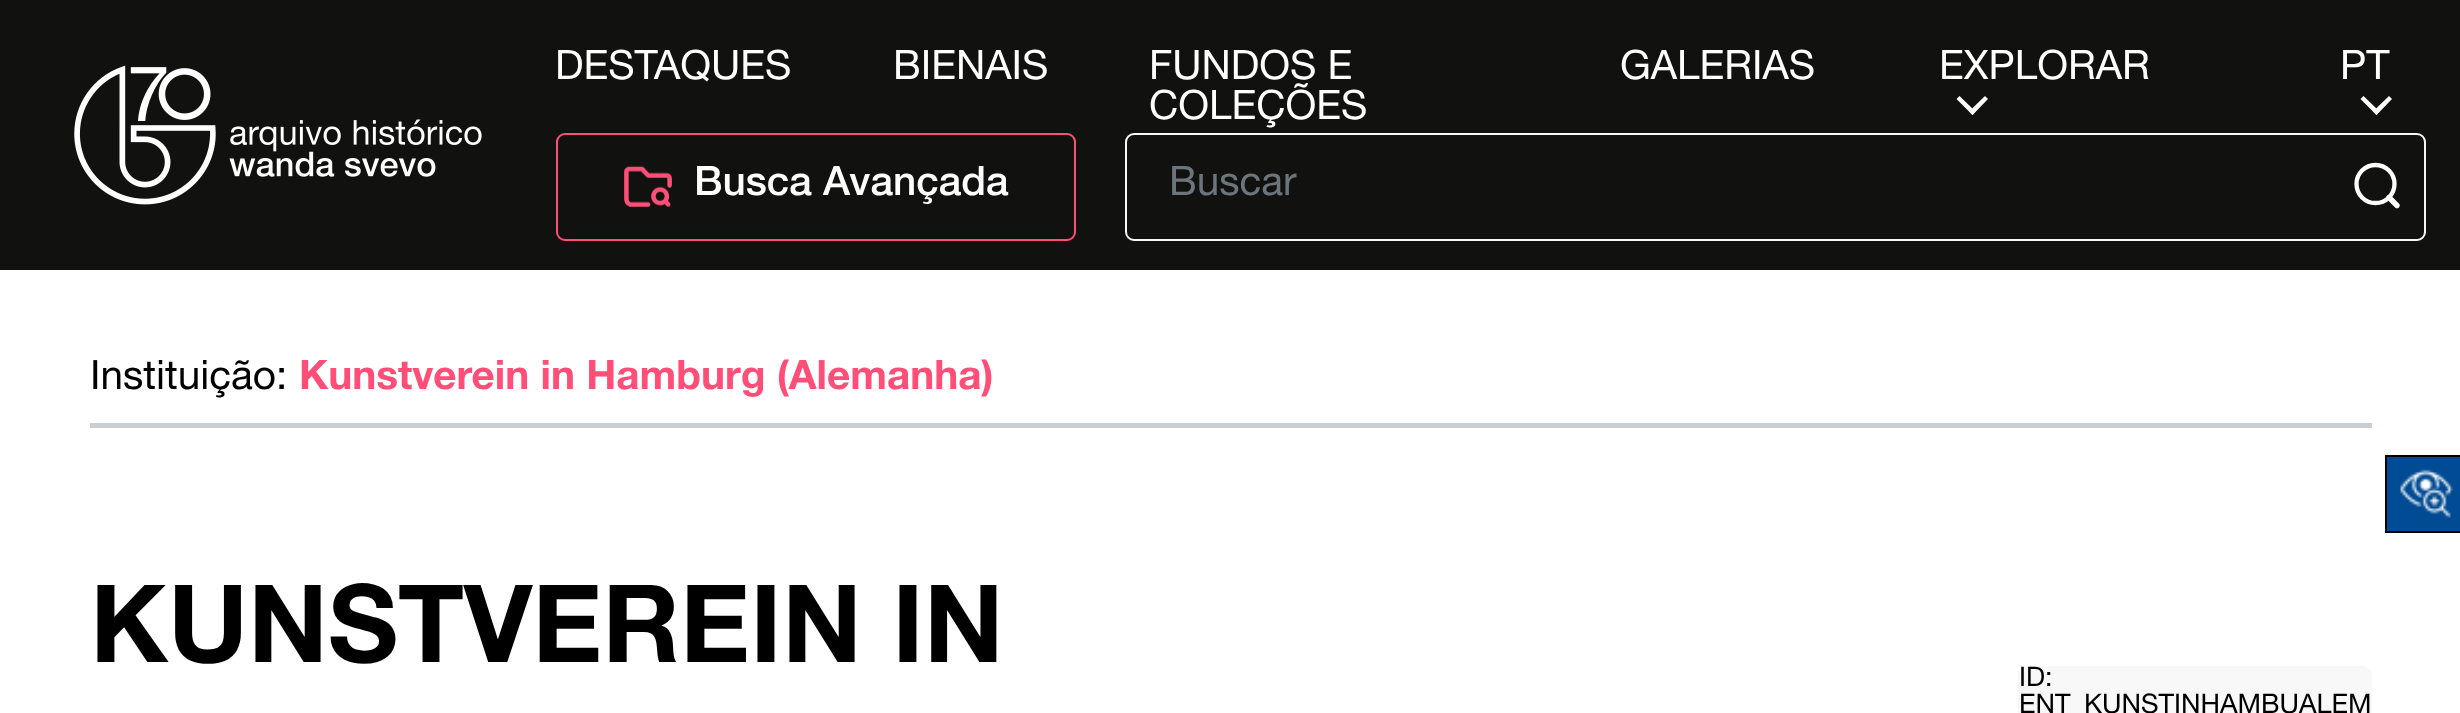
async function draw(canvas) {
  canvas.width = 2460
  canvas.height = 713
  const ctx = canvas.getContext('2d')
  ctx.miterLimit = 4
  ctx.fontKerning = 'normal'
  async function loadImage(src) {
    const img = new Image()
    img.src = src
    await img.decode()
    return img
  }

  ctx.fillStyle = '#fff'
  ctx.fillRect(0, 0, 2460, 713)
  ctx.fillStyle = '#11120f'
  ctx.fillRect(0, 0, 2460, 270)
  ctx.drawImage(await loadImage('image0.png'), 74, 65, 408, 140)
  ctx.font = '40.5px Helvetica Neue'
  ctx.fillStyle = '#fff'
  ctx.fillText('DESTAQUES', 555, 79)
  ctx.fillText('BIENAIS', 893, 79)
  ctx.fillText('FUNDOS E', 1149, 79)
  ctx.fillText('COLEÇÕES', 1149, 119)
  ctx.fillText('GALERIAS', 1620, 79)
  ctx.fillText('EXPLORAR', 1939, 79)
  ctx.beginPath()
  ctx.moveTo(1985, 96)
  ctx.lineTo(1988, 99)
  ctx.lineTo(1972.5, 115)
  ctx.lineTo(1969, 111.5)
  ctx.closePath()
  ctx.fill()
  ctx.beginPath()
  ctx.moveTo(1959.5, 96)
  ctx.lineTo(1975.5, 111.5)
  ctx.lineTo(1972.5, 115)
  ctx.lineTo(1956.5, 99)
  ctx.closePath()
  ctx.fill()
  ctx.fillText('PT', 2340, 79)
  ctx.beginPath()
  ctx.moveTo(2389, 96)
  ctx.lineTo(2392, 99)
  ctx.lineTo(2376.5, 115)
  ctx.lineTo(2373, 111.5)
  ctx.closePath()
  ctx.fill()
  ctx.beginPath()
  ctx.moveTo(2363.5, 96)
  ctx.lineTo(2379.5, 111.5)
  ctx.lineTo(2376.5, 115)
  ctx.lineTo(2360.5, 99)
  ctx.closePath()
  ctx.fill()
  ctx.beginPath()
  ctx.roundRect(557, 134, 518, 106, 8)
  ctx.strokeStyle = '#ff4e78'
  ctx.lineWidth = 2
  ctx.stroke()
  ctx.drawImage(await loadImage('image1.png'), 624, 166, 48, 41)
  ctx.font = '500 40.5px Helvetica Neue'
  ctx.fillText('Busca Avançada', 694, 195)
  ctx.beginPath()
  ctx.roundRect(1126, 134, 1299, 106, 8)
  ctx.strokeStyle = '#f8f8f8'
  ctx.stroke()
  ctx.font = '40.5px Helvetica Neue'
  ctx.fillStyle = '#6c757d'
  ctx.fillText('Buscar', 1169, 195)
  ctx.beginPath()
  ctx.arc(2375.5, 184, 19, 0, 2 * Math.PI)
  ctx.strokeStyle = '#fff'
  ctx.lineWidth = 4.3
  ctx.stroke()
  ctx.beginPath()
  ctx.moveTo(2389, 197.5)
  ctx.lineTo(2397, 205.5)
  ctx.lineWidth = 5.4
  ctx.lineCap = 'round'
  ctx.stroke()
  ctx.fillStyle = '#000'
  ctx.fillText('Instituição:', 90, 389)
  ctx.font = 'bold 40.5px Helvetica Neue'
  ctx.fillStyle = '#ff4e78'
  ctx.fillText('Kunstverein in Hamburg (Alemanha)', 299, 389)
  ctx.fillStyle = '#c8ced3'
  ctx.fillRect(90, 423, 2282, 5)
  ctx.font = 'bold 108px Helvetica Neue'
  ctx.fillStyle = '#000'
  ctx.fillText('KUNSTVEREIN IN', 90, 662)
  ctx.fillStyle = '#f8f8f8'
  ctx.beginPath()
  ctx.roundRect(2018, 666, 354, 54, 9)
  ctx.fill()
  ctx.font = '27px Helvetica Neue'
  ctx.fillStyle = '#000'
  ctx.fillText('ID:', 2019, 686)
  ctx.fillText('ENT_KUNSTINHAMBUALEM', 2019, 713)
  ctx.fillStyle = '#004b93'
  ctx.beginPath()
  ctx.rect(2386, 456, 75, 76)
  ctx.fill()
  ctx.strokeStyle = '#000'
  ctx.lineWidth = 2
  ctx.stroke()
  ctx.drawImage(await loadImage('image2.png'), 2400, 469, 53, 49)
}

draw(document.querySelector('canvas'))
